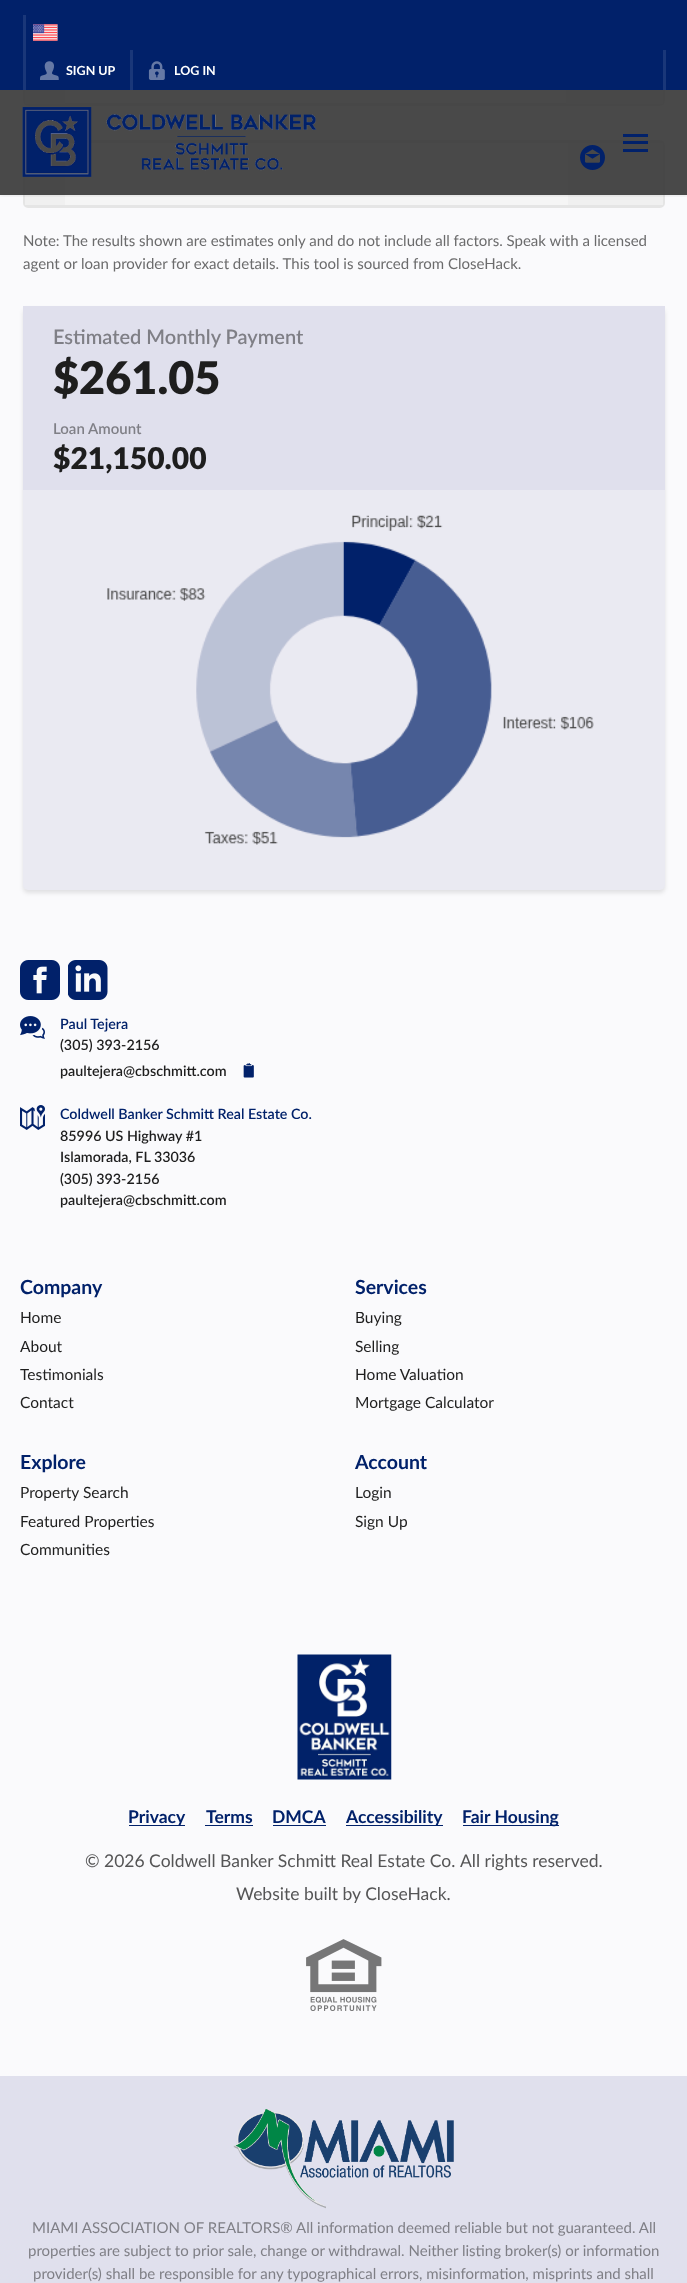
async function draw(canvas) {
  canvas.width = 687
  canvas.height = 2283
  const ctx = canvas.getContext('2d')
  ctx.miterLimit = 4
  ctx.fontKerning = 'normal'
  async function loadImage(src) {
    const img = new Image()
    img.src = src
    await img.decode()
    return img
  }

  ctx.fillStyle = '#fafafc'
  ctx.fillRect(0, 0, 687, 2283)
  ctx.fillStyle = '#f5f5f5'
  ctx.beginPath()
  ctx.roundRect(24.5, 40.5, 639, 64, 3.5)
  ctx.fill()
  ctx.strokeStyle = '#e5e5e5'
  ctx.lineWidth = 3
  ctx.stroke()
  ctx.fillStyle = '#f0f0f0'
  ctx.fillRect(25, 90, 40, 14)
  ctx.fillRect(566, 90, 97, 14)
  ctx.fillStyle = '#f5f5f5'
  ctx.beginPath()
  ctx.roundRect(24.5, 141.5, 639, 65, 3.5)
  ctx.fill()
  ctx.stroke()
  ctx.fillStyle = '#f0f0f0'
  ctx.fillRect(25, 143, 40, 62)
  ctx.fillRect(568, 143, 95, 62)
  ctx.save()
  ctx.beginPath()
  ctx.rect(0, 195, 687, 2)
  ctx.clip()
  ctx.fillStyle = '#00000014'
  ctx.filter = 'blur(2px)'
  ctx.beginPath()
  ctx.rect(0, 91, 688, 105)
  ctx.fill()
  ctx.filter = 'none'
  ctx.restore()
  ctx.fillStyle = '#01216a'
  ctx.fillRect(0, 0, 687, 90)
  ctx.fillStyle = '#1a3779'
  ctx.fillRect(23, 15, 3, 75)
  ctx.drawImage(await loadImage('image0.png'), 33, 24, 25, 17)
  ctx.fillRect(663, 50, 3, 40)
  ctx.drawImage(await loadImage('image1.png'), 40, 61, 19, 19)
  ctx.font = 'bold 12.5px Lato'
  ctx.fillStyle = '#fff'
  ctx.fillText('SIGN UP', 66, 75)
  ctx.fillStyle = '#1a3779'
  ctx.fillRect(130, 50, 3, 40)
  ctx.drawImage(await loadImage('image2.png'), 148, 61, 17, 19)
  ctx.fillStyle = '#fff'
  ctx.fillText('LOG IN', 174, 75)
  ctx.fillStyle = '#3b3b3bed'
  ctx.fillRect(0, 90, 687, 105)
  ctx.drawImage(await loadImage('image3.png'), 22, 107, 295, 70)
  ctx.fillStyle = '#01216a'
  ctx.fillRect(623, 134, 25, 3)
  ctx.fillRect(623, 141, 25, 3)
  ctx.fillRect(623, 149, 25, 3)
  ctx.drawImage(await loadImage('image4.png'), 580, 145, 25, 25)
  ctx.font = '15px Lato'
  ctx.fillStyle = '#6b6b6c'
  ctx.fillText('Note: The results shown are estimates only and do not include all factors. Speak with a licensed', 23, 246)
  ctx.fillText('agent or loan provider for exact details. This tool is sourced from CloseHack.', 23, 269)
  ctx.fillStyle = '#0000001a'
  ctx.filter = 'blur(2px)'
  ctx.beginPath()
  ctx.roundRect(23, 309, 642, 584, 5)
  ctx.fill()
  ctx.filter = 'none'
  ctx.fillStyle = '#eaeaf2'
  ctx.beginPath()
  ctx.roundRect(23, 306, 642, 584, 5)
  ctx.fill()
  ctx.fillStyle = '#e0e0ed'
  ctx.fillRect(23, 306, 642, 184)
  ctx.font = '600 20px Lato'
  ctx.fillStyle = '#7f7f86'
  ctx.fillText('Estimated Monthly Payment', 53, 344)
  ctx.font = '800 45px Lato'
  ctx.fillStyle = '#1e1e1e'
  ctx.fillText('$261.05', 53, 394)
  ctx.font = '600 15px Lato'
  ctx.fillStyle = '#7f7f86'
  ctx.fillText('Loan Amount', 53, 434)
  ctx.font = '800 30px Lato'
  ctx.fillStyle = '#1e1e1e'
  ctx.fillText('$21,150.00', 53, 469)
  ctx.drawImage(await loadImage('image5.png'), 107, 515, 487, 330)
  ctx.drawImage(await loadImage('image6.png'), 20, 960, 40, 40)
  ctx.drawImage(await loadImage('image7.png'), 68, 960, 40, 40)
  ctx.drawImage(await loadImage('image8.png'), 20, 1016, 25, 23)
  ctx.font = '600 14.3px Lato'
  ctx.fillStyle = '#01216a'
  ctx.fillText('Paul Tejera', 60, 1029)
  ctx.fillStyle = '#1e1e1e'
  ctx.fillText('(305) 393-2156', 60, 1050)
  ctx.fillText('paultejera@cbschmitt.com', 60, 1076)
  ctx.drawImage(await loadImage('image9.png'), 243, 1063, 11, 15)
  ctx.drawImage(await loadImage('image10.png'), 20, 1105, 25, 25)
  ctx.fillStyle = '#01216a'
  ctx.fillText('Coldwell Banker Schmitt Real Estate Co.', 60, 1119)
  ctx.fillStyle = '#1e1e1e'
  ctx.fillText('85996 US Highway #1', 60, 1141)
  ctx.fillText('Islamorada, FL 33036', 60, 1162)
  ctx.fillText('(305) 393-2156', 60, 1184)
  ctx.fillText('paultejera@cbschmitt.com', 60, 1205)
  ctx.font = 'bold 19.5px Lato'
  ctx.fillStyle = '#01216a'
  ctx.fillText('Company', 20, 1294)
  ctx.font = '15.5px Lato'
  ctx.fillStyle = '#1e1e1e'
  ctx.fillText('Home', 20, 1323)
  ctx.fillText('About', 20, 1352)
  ctx.fillText('Testimonials', 20, 1380)
  ctx.fillText('Contact', 20, 1408)
  ctx.font = 'bold 19.5px Lato'
  ctx.fillStyle = '#01216a'
  ctx.fillText('Explore', 20, 1469)
  ctx.font = '15.5px Lato'
  ctx.fillStyle = '#1e1e1e'
  ctx.fillText('Property Search', 20, 1498)
  ctx.fillText('Featured Properties', 20, 1527)
  ctx.fillText('Communities', 20, 1555)
  ctx.font = 'bold 19.5px Lato'
  ctx.fillStyle = '#01216a'
  ctx.fillText('Services', 355, 1294)
  ctx.font = '15.5px Lato'
  ctx.fillStyle = '#1e1e1e'
  ctx.fillText('Buying', 355, 1323)
  ctx.fillText('Selling', 355, 1352)
  ctx.fillText('Home Valuation', 355, 1380)
  ctx.fillText('Mortgage Calculator', 355, 1408)
  ctx.font = 'bold 19.5px Lato'
  ctx.fillStyle = '#01216a'
  ctx.fillText('Account', 355, 1469)
  ctx.font = '15.5px Lato'
  ctx.fillStyle = '#1e1e1e'
  ctx.fillText('Login', 355, 1498)
  ctx.fillText('Sign Up', 355, 1527)
  ctx.drawImage(await loadImage('image11.png'), 297, 1654, 95, 126)
  ctx.fillStyle = '#01216a'
  ctx.fillRect(129, 1825, 56, 1)
  ctx.font = 'bold 17.5px Lato'
  ctx.fillText('Privacy', 128, 1823)
  ctx.fillText('Terms', 206, 1823)
  ctx.fillRect(205, 1825, 48, 1)
  ctx.fillText('DMCA', 272, 1823)
  ctx.fillRect(273, 1825, 53, 1)
  ctx.fillRect(346, 1825, 97, 1)
  ctx.fillText('Accessibility', 346, 1823)
  ctx.fillRect(463, 1825, 96, 1)
  ctx.fillText('Fair Housing', 462, 1823)
  ctx.font = '17.5px Lato'
  ctx.fillStyle = '#555556'
  ctx.fillText('© 2026 Coldwell Banker Schmitt Real Estate Co.', 85, 1867)
  ctx.fillText('All rights reserved.', 460, 1867)
  ctx.fillText('Website built by CloseHack.', 236, 1900)
  ctx.drawImage(await loadImage('image12.png'), 306, 1939, 76, 72)
  ctx.fillStyle = '#e0e0ed'
  ctx.fillRect(0, 2076, 687, 207)
  ctx.drawImage(await loadImage('image13.png'), 233, 2109, 221, 100)
  ctx.font = '15px Lato'
  ctx.fillStyle = '#7f7f86'
  ctx.fillText('MIAMI ASSOCIATION OF REALTORS® All information deemed reliable but not guaranteed. All', 32, 2233)
  ctx.fillText('properties are subject to prior sale, change or withdrawal. Neither listing broker(s) or information', 28, 2256)
  ctx.fillText('provider(s) shall be responsible for any typographical errors, misinformation, misprints and shall', 33, 2279)
}

draw(document.querySelector('canvas'))
